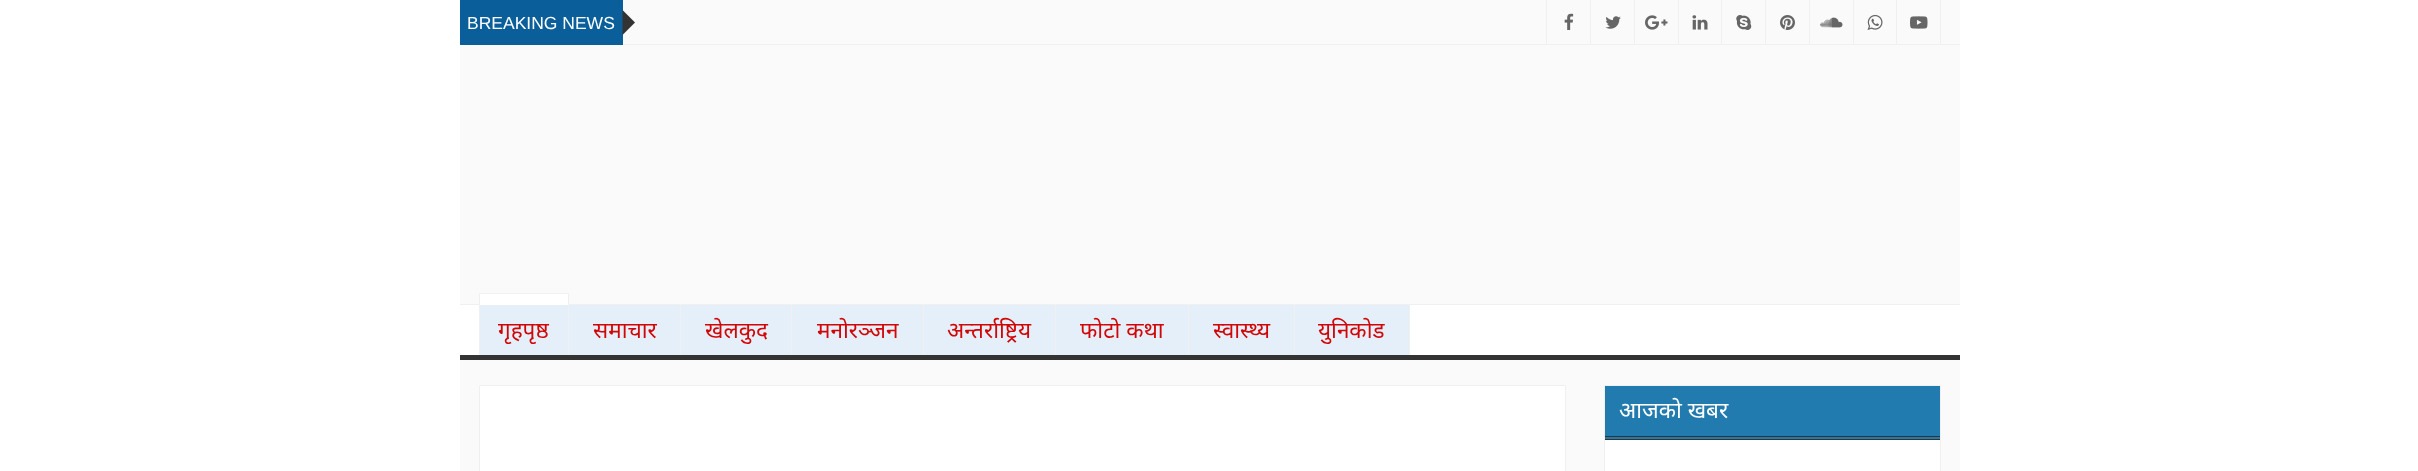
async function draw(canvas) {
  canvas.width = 2418
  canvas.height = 471
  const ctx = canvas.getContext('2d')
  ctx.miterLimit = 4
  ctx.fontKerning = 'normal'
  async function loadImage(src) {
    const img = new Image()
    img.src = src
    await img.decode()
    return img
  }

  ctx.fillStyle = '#fff'
  ctx.fillRect(0, 0, 2418, 471)
  ctx.fillStyle = '#fafafa'
  ctx.fillRect(460, 0, 1500, 471)
  ctx.fillStyle = '#f0f0f0'
  ctx.fillRect(623, 44, 1337, 1)
  ctx.fillStyle = '#0a5f9b'
  ctx.fillRect(460, 0, 163, 45)
  ctx.font = '17.5px Liberation Sans'
  ctx.fillStyle = '#fff'
  ctx.fillText('BREAKING NEWS', 467, 29)
  ctx.fillStyle = '#333'
  ctx.beginPath()
  ctx.moveTo(622.5, 35)
  ctx.lineTo(622.5, 10)
  ctx.lineTo(635, 22.5)
  ctx.closePath()
  ctx.fill()
  ctx.fillStyle = '#f0f0f0'
  ctx.fillRect(1590, 0, 1, 45)
  ctx.fillRect(1546, 0, 1, 45)
  ctx.drawImage(await loadImage('image0.png'), 1564, 13, 10, 17)
  ctx.fillRect(1634, 0, 1, 45)
  ctx.drawImage(await loadImage('image1.png'), 1605, 16, 16, 13)
  ctx.fillRect(1678, 0, 1, 45)
  ctx.drawImage(await loadImage('image2.png'), 1645, 15, 23, 15)
  ctx.fillRect(1721, 0, 1, 45)
  ctx.drawImage(await loadImage('image3.png'), 1692, 15, 16, 15)
  ctx.fillRect(1765, 0, 1, 45)
  ctx.drawImage(await loadImage('image4.png'), 1736, 15, 16, 15)
  ctx.fillRect(1809, 0, 1, 45)
  ctx.drawImage(await loadImage('image5.png'), 1780, 15, 15, 15)
  ctx.fillRect(1853, 0, 1, 45)
  ctx.drawImage(await loadImage('image6.png'), 1820, 17, 23, 11)
  ctx.fillRect(1896, 0, 1, 45)
  ctx.drawImage(await loadImage('image7.png'), 1867, 14, 16, 16)
  ctx.fillRect(1940, 0, 1, 45)
  ctx.drawImage(await loadImage('image8.png'), 1910, 16, 18, 13)
  ctx.fillStyle = '#fff'
  ctx.fillRect(460, 305, 1500, 50)
  ctx.fillStyle = '#f0f0f0'
  ctx.fillRect(460, 304, 1500, 1)
  ctx.fillStyle = '#333'
  ctx.fillRect(460, 355, 1500, 5)
  ctx.fillStyle = '#e5eff9'
  ctx.fillRect(480, 305, 88, 50)
  ctx.fillStyle = '#f0f0f0'
  ctx.fillRect(568, 305, 1, 50)
  ctx.fillRect(479, 305, 1, 50)
  ctx.fillStyle = '#fff'
  ctx.fillRect(480, 294, 88, 11)
  ctx.fillStyle = '#f0f0f0'
  ctx.fillRect(479, 293, 90, 1)
  ctx.fillRect(568, 293, 1, 12)
  ctx.fillRect(479, 293, 1, 12)
  ctx.font = '22.5px Noto Sans'
  ctx.fillStyle = '#d10606'
  ctx.fillText('गृहपृष्ठ', 498, 338)
  ctx.fillStyle = '#e5eff9'
  ctx.fillRect(569, 305, 111, 50)
  ctx.fillStyle = '#f0f0f0'
  ctx.fillRect(680, 305, 1, 50)
  ctx.fillStyle = '#d10606'
  ctx.fillText('समाचार', 593, 338)
  ctx.fillStyle = '#e5eff9'
  ctx.fillRect(681, 305, 242, 50)
  ctx.fillStyle = '#f0f0f0'
  ctx.fillRect(791, 305, 1, 50)
  ctx.fillStyle = '#d10606'
  ctx.fillText('खेलकुद', 705, 338)
  ctx.fillStyle = '#f0f0f0'
  ctx.fillRect(923, 305, 1, 50)
  ctx.fillStyle = '#d10606'
  ctx.fillText('मनोरञ्जन', 817, 338)
  ctx.fillStyle = '#e5eff9'
  ctx.fillRect(924, 305, 131, 50)
  ctx.fillStyle = '#f0f0f0'
  ctx.fillRect(1055, 305, 1, 50)
  ctx.fillStyle = '#d10606'
  ctx.fillText('अन्तर्राष्ट्रिय', 947, 338)
  ctx.fillStyle = '#e5eff9'
  ctx.fillRect(1056, 305, 132, 50)
  ctx.fillStyle = '#f0f0f0'
  ctx.fillRect(1188, 305, 1, 50)
  ctx.fillStyle = '#d10606'
  ctx.fillText('फोटो कथा', 1080, 338)
  ctx.fillStyle = '#e5eff9'
  ctx.fillRect(1189, 305, 105, 50)
  ctx.fillStyle = '#f0f0f0'
  ctx.fillRect(1294, 305, 1, 50)
  ctx.fillStyle = '#d10606'
  ctx.fillText('स्वास्थ्य', 1213, 338)
  ctx.fillStyle = '#e5eff9'
  ctx.fillRect(1295, 305, 114, 50)
  ctx.fillStyle = '#f0f0f0'
  ctx.fillRect(1409, 305, 1, 50)
  ctx.fillStyle = '#d10606'
  ctx.fillText('युनिकोड', 1318, 338)
  ctx.fillStyle = '#fff'
  ctx.beginPath()
  ctx.rect(479.5, 385.5, 1086, 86)
  ctx.fill()
  ctx.strokeStyle = '#f0f0f0'
  ctx.stroke()
  ctx.fillRect(1605, 440, 335, 31)
  ctx.strokeRect(1604.5, 385.5, 336, 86)
  ctx.fillStyle = '#227baf'
  ctx.fillRect(1605, 386, 335, 53)
  ctx.fillStyle = '#333'
  ctx.fillRect(1605, 436, 335, 1)
  ctx.fillRect(1605, 439, 335, 1)
  ctx.fillStyle = '#fff'
  ctx.fillText('आजको खबर', 1619, 418)
}

draw(document.querySelector('canvas'))
